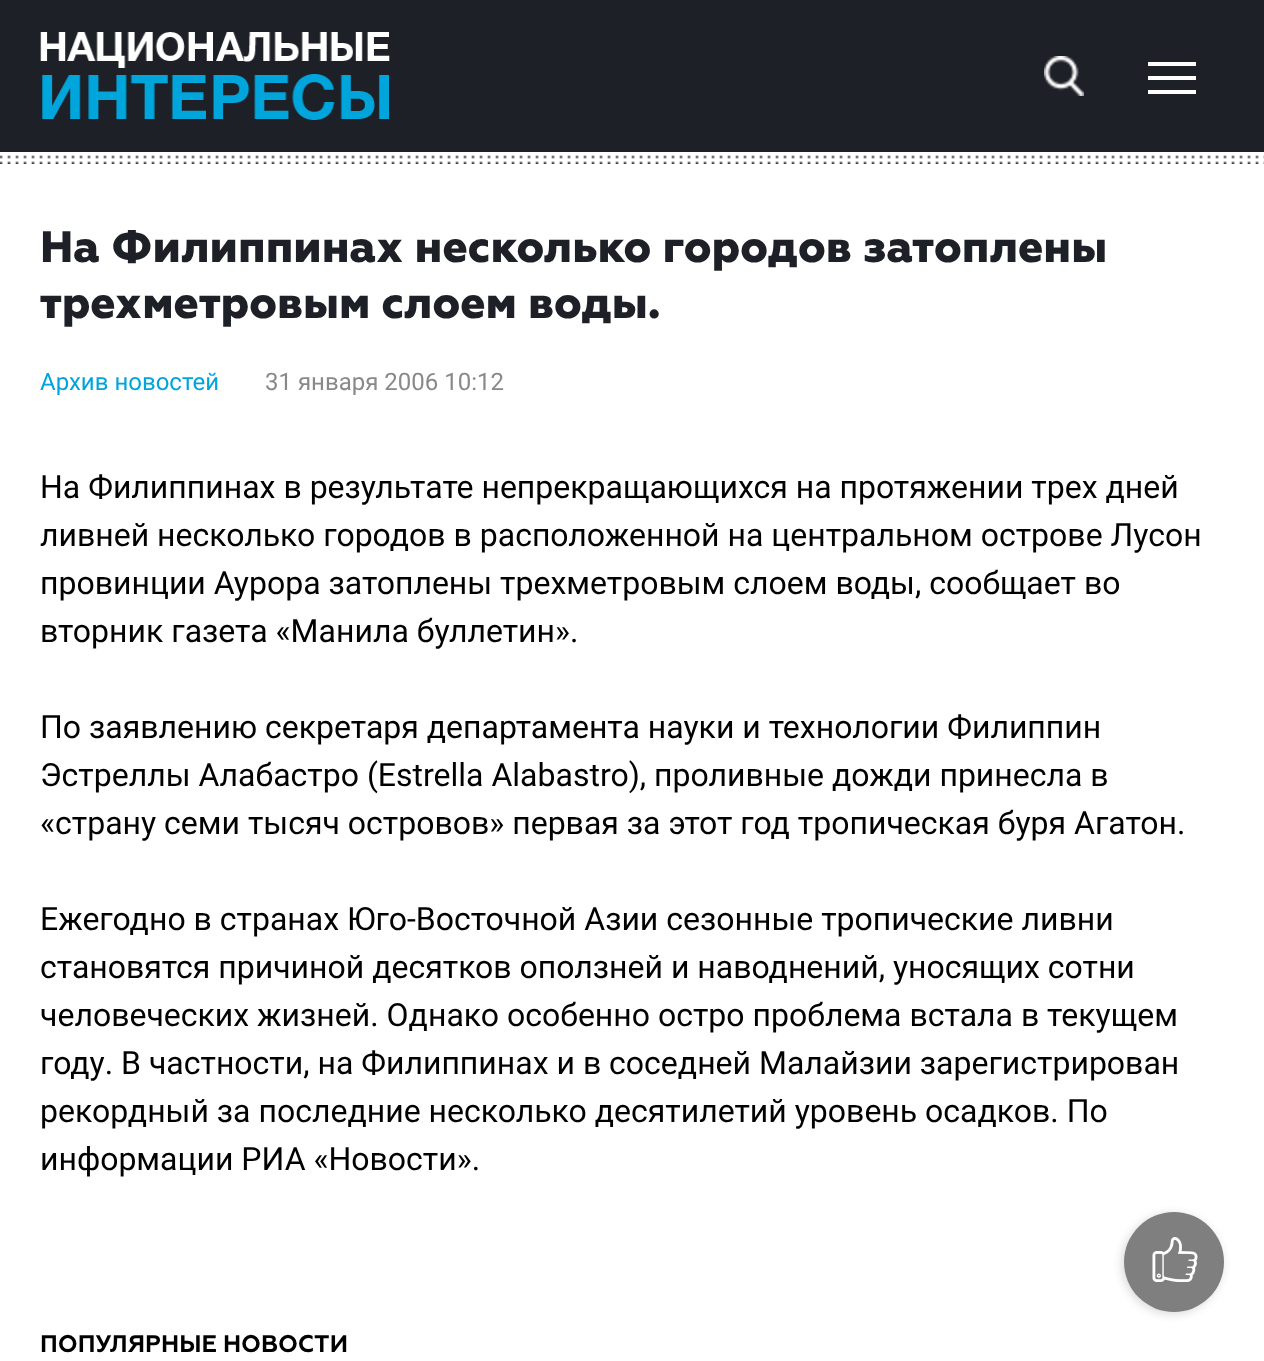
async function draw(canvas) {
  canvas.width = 1264
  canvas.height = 1361
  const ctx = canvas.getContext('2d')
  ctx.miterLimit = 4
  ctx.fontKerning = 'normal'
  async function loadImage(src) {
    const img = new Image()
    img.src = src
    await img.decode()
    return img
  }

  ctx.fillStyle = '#fff'
  ctx.fillRect(0, 0, 1264, 1361)
  ctx.fillStyle = '#1e2027'
  ctx.fillRect(0, 0, 1264, 152)
  ctx.drawImage(await loadImage('image0.png'), 40, 32, 350, 88)
  ctx.drawImage(await loadImage('image1.png'), 1044, 56, 40, 40)
  ctx.fillStyle = '#fff'
  ctx.fillRect(1148, 62, 48, 4)
  ctx.fillRect(1148, 76, 48, 4)
  ctx.fillRect(1148, 90, 48, 4)
  ctx.drawImage(await loadImage('image2.png'), 0, 155, 1264, 9)
  ctx.font = '800 44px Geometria'
  ctx.fillStyle = '#1e2027'
  ctx.fillText('На Филиппинах несколько городов затоплены', 40, 262)
  ctx.fillText('трехметровым слоем воды.', 40, 318)
  ctx.font = '24px Roboto'
  ctx.fillStyle = '#00a5db'
  ctx.fillText('Архив новостей', 40, 390)
  ctx.fillStyle = '#898989'
  ctx.fillText('31 января 2006 10:12', 265, 390)
  ctx.font = '32px Roboto'
  ctx.fillStyle = '#000'
  ctx.fillText('На Филиппинах в результате непрекращающихся на протяжении трех дней', 40, 498)
  ctx.fillText('ливней несколько городов в расположенной на центральном острове Лусон', 40, 546)
  ctx.fillText('провинции Аурора затоплены трехметровым слоем воды, сообщает во', 40, 594)
  ctx.fillText('вторник газета «Манила буллетин».', 40, 642)
  ctx.fillText('По заявлению секретаря департамента науки и технологии Филиппин', 40, 738)
  ctx.fillText('Эстреллы Алабастро (Estrella Alabastro), проливные дожди принесла в', 40, 786)
  ctx.fillText('«страну семи тысяч островов» первая за этот год тропическая буря Агатон.', 40, 834)
  ctx.fillText('Ежегодно в странах Юго-Восточной Азии сезонные тропические ливни', 40, 930)
  ctx.fillText('становятся причиной десятков оползней и наводнений, уносящих сотни', 40, 978)
  ctx.fillText('человеческих жизней. Однако особенно остро проблема встала в текущем', 40, 1026)
  ctx.fillText('году. В частности, на Филиппинах и в соседней Малайзии зарегистрирован', 40, 1074)
  ctx.fillText('рекордный за последние несколько десятилетий уровень осадков. По', 40, 1122)
  ctx.fillText('информации РИА «Новости».', 40, 1170)
  ctx.save()
  ctx.beginPath()
  ctx.moveTo(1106, 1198)
  ctx.lineTo(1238, 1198)
  ctx.lineTo(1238, 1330)
  ctx.lineTo(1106, 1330)
  ctx.closePath()
  ctx.moveTo(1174, 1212)
  ctx.bezierCurveTo(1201.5, 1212, 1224, 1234.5, 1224, 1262)
  ctx.bezierCurveTo(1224, 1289.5, 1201.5, 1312, 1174, 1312)
  ctx.bezierCurveTo(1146.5, 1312, 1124, 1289.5, 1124, 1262)
  ctx.bezierCurveTo(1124, 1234.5, 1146.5, 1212, 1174, 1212)
  ctx.closePath()
  ctx.clip('evenodd')
  ctx.fillStyle = '#00000026'
  ctx.filter = 'blur(5px)'
  ctx.beginPath()
  ctx.roundRect(1122, 1214, 100, 100, 50)
  ctx.fill()
  ctx.filter = 'none'
  ctx.restore()
  ctx.fillStyle = '#00000080'
  ctx.beginPath()
  ctx.arc(1174, 1262, 50, 0, 2 * Math.PI)
  ctx.fill()
  ctx.drawImage(await loadImage('image3.png'), 1152, 1237, 46, 45)
  ctx.font = 'bold 24px Geometria'
  ctx.fillStyle = '#000'
  ctx.fillText('ПОПУЛЯРНЫЕ НОВОСТИ', 40, 1352)
}

draw(document.querySelector('canvas'))
